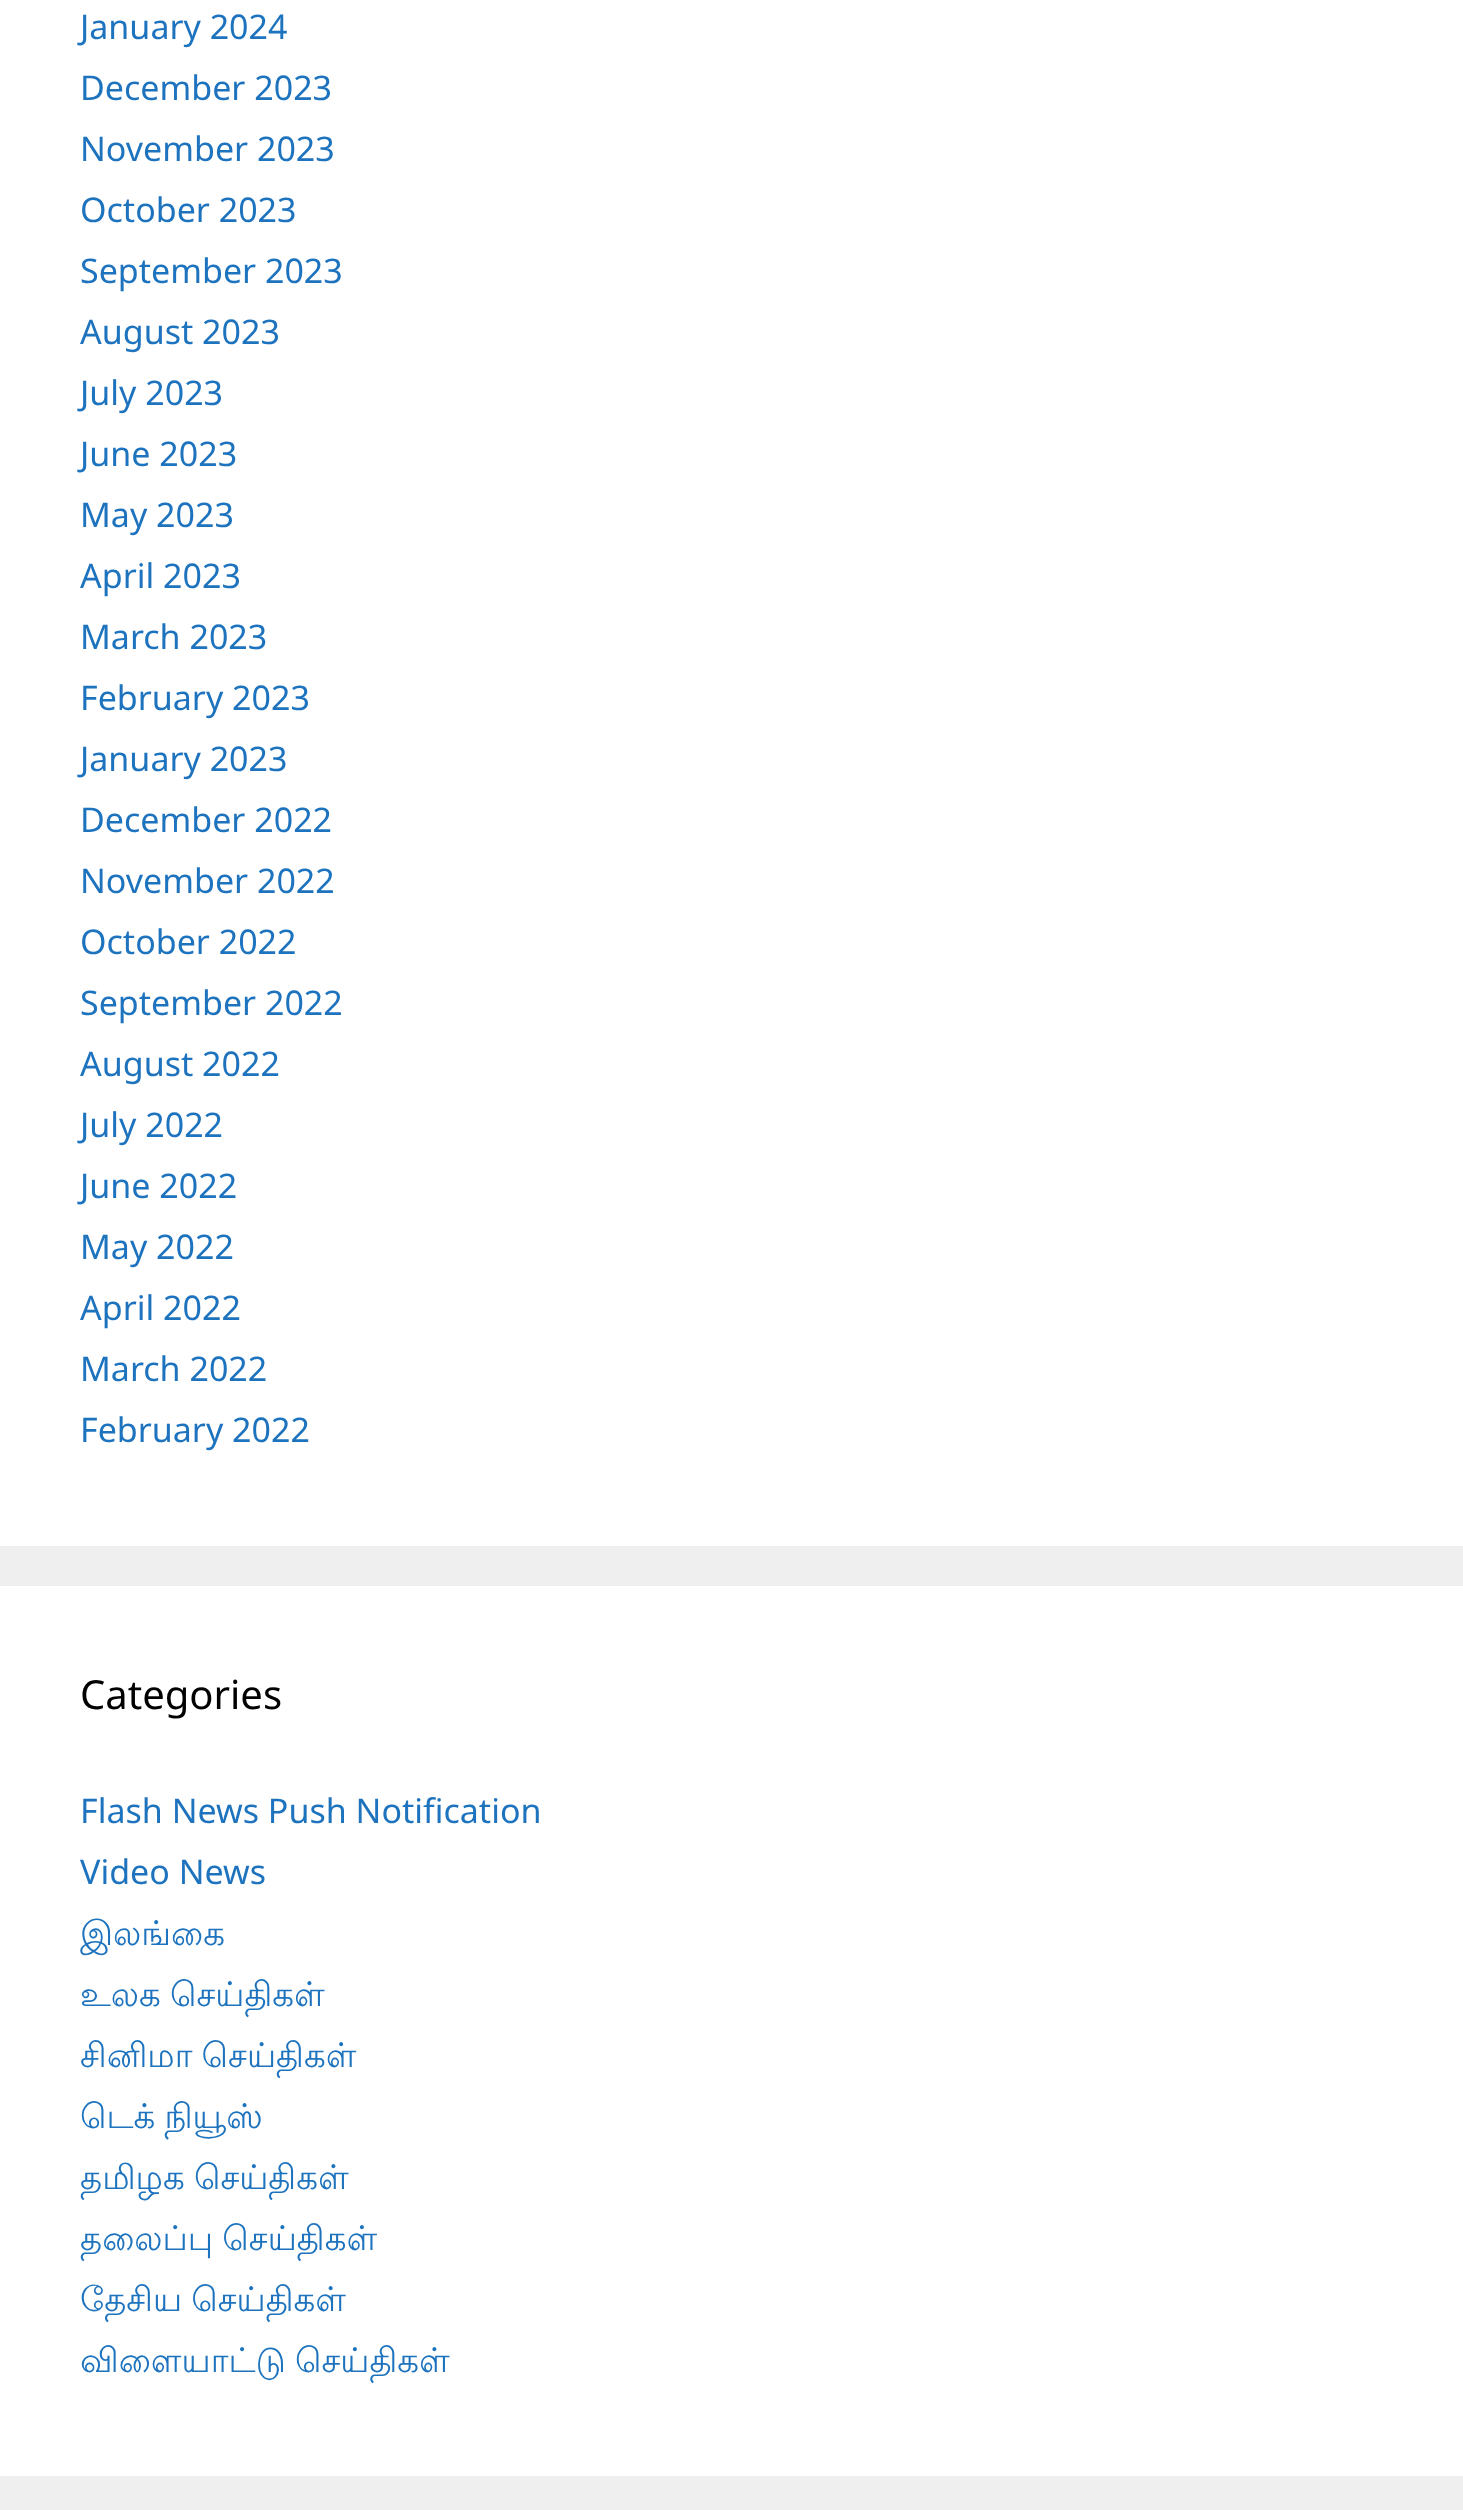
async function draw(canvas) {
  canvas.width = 1463
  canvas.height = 2510
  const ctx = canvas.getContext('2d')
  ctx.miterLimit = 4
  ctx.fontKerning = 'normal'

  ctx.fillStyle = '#efefef'
  ctx.fillRect(0, 0, 1463, 2510)
  ctx.fillStyle = '#fff'
  ctx.fillRect(0, 0, 1463, 1546)
  ctx.font = '34px Noto Sans'
  ctx.fillStyle = '#1e73be'
  ctx.fillText('January 2024', 80, 39)
  ctx.fillText('December 2023', 80, 100)
  ctx.fillText('November 2023', 80, 161)
  ctx.fillText('October 2023', 80, 222)
  ctx.fillText('September 2023', 80, 283)
  ctx.fillText('August 2023', 80, 344)
  ctx.fillText('July 2023', 80, 405)
  ctx.fillText('June 2023', 80, 466)
  ctx.fillText('May 2023', 80, 527)
  ctx.fillText('April 2023', 80, 588)
  ctx.fillText('March 2023', 80, 649)
  ctx.fillText('February 2023', 80, 710)
  ctx.fillText('January 2023', 80, 771)
  ctx.fillText('December 2022', 80, 832)
  ctx.fillText('November 2022', 80, 893)
  ctx.fillText('October 2022', 80, 954)
  ctx.fillText('September 2022', 80, 1015)
  ctx.fillText('August 2022', 80, 1076)
  ctx.fillText('July 2022', 80, 1137)
  ctx.fillText('June 2022', 80, 1198)
  ctx.fillText('May 2022', 80, 1259)
  ctx.fillText('April 2022', 80, 1320)
  ctx.fillText('March 2022', 80, 1381)
  ctx.fillText('February 2022', 80, 1442)
  ctx.fillStyle = '#fff'
  ctx.fillRect(0, 1586, 1463, 890)
  ctx.font = '40px Noto Sans'
  ctx.fillStyle = '#000'
  ctx.fillText('Categories', 80, 1709)
  ctx.font = '34px Noto Sans'
  ctx.fillStyle = '#1e73be'
  ctx.fillText('Flash News Push Notification', 80, 1823)
  ctx.fillText('Video News', 80, 1884)
  ctx.font = '34px Lohit Tamil'
  ctx.fillText('இலங்கை', 80, 1945)
  ctx.wordSpacing = '-1px'
  ctx.fillText('உலக செய்திகள்', 80, 2006)
  ctx.fillText('சினிமா செய்திகள்', 80, 2067)
  ctx.fillText('டெக் நியூஸ்', 80, 2128)
  ctx.fillText('தமிழக செய்திகள்', 80, 2189)
  ctx.fillText('தலைப்பு செய்திகள்', 80, 2250)
  ctx.fillText('தேசிய செய்திகள்', 80, 2311)
  ctx.fillText('விளையாட்டு செய்திகள்', 80, 2372)
}

draw(document.querySelector('canvas'))
